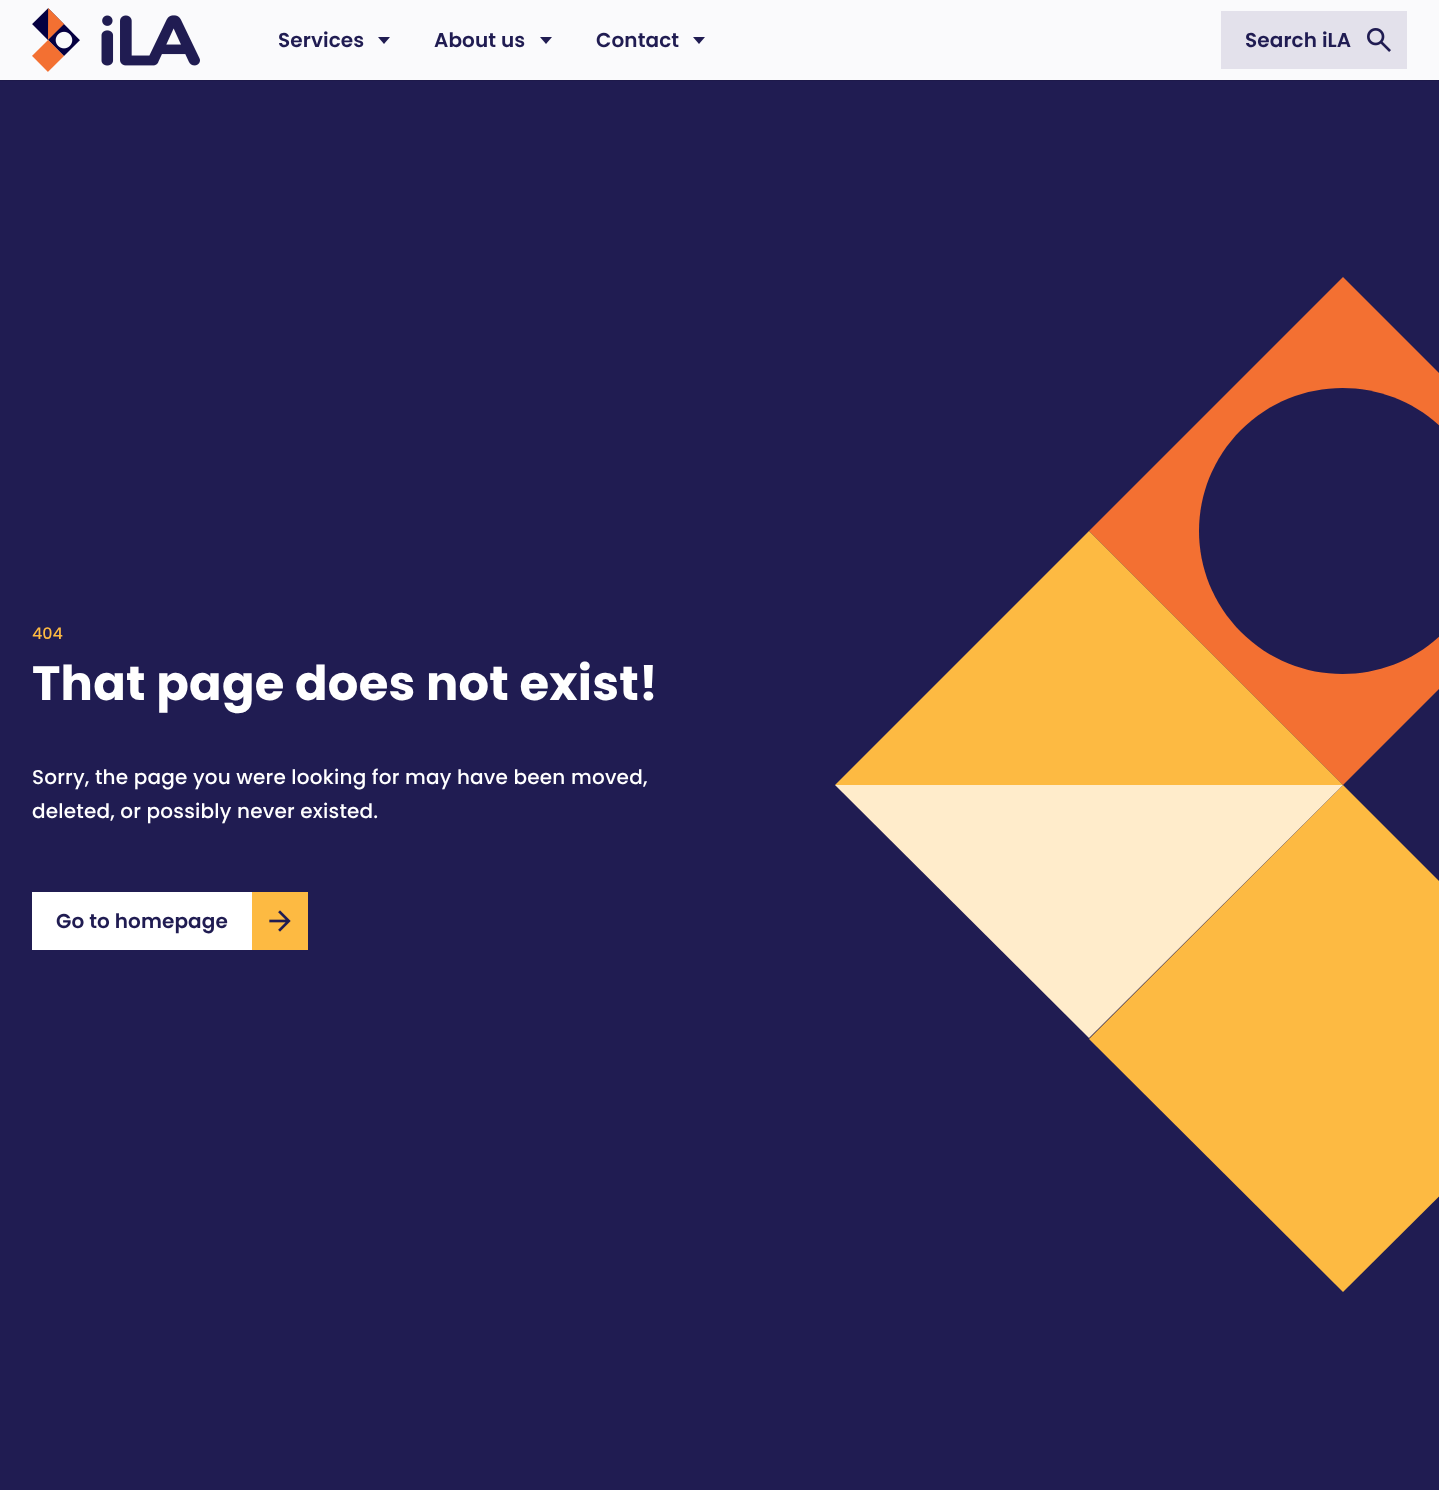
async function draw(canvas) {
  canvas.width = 1439
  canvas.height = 1490
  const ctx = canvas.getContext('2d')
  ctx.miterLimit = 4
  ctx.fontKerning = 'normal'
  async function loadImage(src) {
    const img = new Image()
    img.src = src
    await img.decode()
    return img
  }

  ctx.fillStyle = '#201c52'
  ctx.fillRect(0, 0, 1439, 1490)
  ctx.fillStyle = '#fafafc'
  ctx.fillRect(0, 0, 1439, 80)
  ctx.drawImage(await loadImage('image0.png'), 32, 8, 168, 64)
  ctx.letterSpacing = '0.1px'
  ctx.font = '600 20px Poppins'
  ctx.fillStyle = '#201c52'
  ctx.fillText('Services', 278, 47)
  ctx.beginPath()
  ctx.moveTo(378, 37)
  ctx.lineTo(390, 37)
  ctx.lineTo(384, 44)
  ctx.closePath()
  ctx.fill()
  ctx.fillText('About us', 434, 47)
  ctx.beginPath()
  ctx.moveTo(540, 37)
  ctx.lineTo(552, 37)
  ctx.lineTo(546, 44)
  ctx.closePath()
  ctx.fill()
  ctx.fillText('Contact', 596, 47)
  ctx.beginPath()
  ctx.moveTo(693, 37)
  ctx.lineTo(705, 37)
  ctx.lineTo(699, 44)
  ctx.closePath()
  ctx.fill()
  ctx.fillStyle = '#e3e1eb'
  ctx.fillRect(1221, 11, 186, 58)
  ctx.fillStyle = '#201c52'
  ctx.fillText('Search iLA', 1245, 47)
  ctx.drawImage(await loadImage('image1.png'), 1367, 28, 24, 24)
  ctx.fillStyle = '#1d194a'
  ctx.fillRect(0, 80, 1439, 1)
  ctx.letterSpacing = '0px'
  ctx.font = '500 16px Poppins'
  ctx.fillStyle = '#fdba42'
  ctx.fillText('404', 32, 639)
  ctx.letterSpacing = '0.25px'
  ctx.font = 'bold 48px Poppins'
  ctx.fillStyle = '#fff'
  ctx.fillText('That page does not exist!', 32, 700)
  ctx.letterSpacing = '0.2px'
  ctx.font = '500 20px Poppins'
  ctx.fillText('Sorry, the page you were looking for may have been moved,', 32, 784)
  ctx.fillText('deleted, or possibly never existed.', 32, 818)
  ctx.fillRect(32, 892, 220, 58)
  ctx.letterSpacing = '0.1px'
  ctx.font = '600 20px Poppins'
  ctx.fillStyle = '#201c52'
  ctx.fillText('Go to homepage', 56, 928)
  ctx.fillStyle = '#fdba42'
  ctx.fillRect(252, 892, 56, 58)
  ctx.drawImage(await loadImage('image2.png'), 269, 910, 22, 22)
  ctx.fillStyle = '#f37032'
  ctx.beginPath()
  ctx.moveTo(1089, 531)
  ctx.lineTo(1343, 277)
  ctx.lineTo(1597, 531)
  ctx.lineTo(1343, 785)
  ctx.closePath()
  ctx.fill()
  ctx.fillStyle = '#201c52'
  ctx.beginPath()
  ctx.moveTo(1241, 430)
  ctx.bezierCurveTo(1297, 374, 1388, 374, 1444, 430)
  ctx.bezierCurveTo(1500, 486, 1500, 576, 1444, 632)
  ctx.bezierCurveTo(1388, 688, 1297, 688, 1241, 632)
  ctx.bezierCurveTo(1185, 576, 1185, 486, 1241, 430)
  ctx.fill()
  ctx.fillStyle = '#fdba42'
  ctx.beginPath()
  ctx.moveTo(1089, 1039)
  ctx.lineTo(1343, 785)
  ctx.lineTo(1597, 1039)
  ctx.lineTo(1343, 1292)
  ctx.closePath()
  ctx.fill()
  ctx.fillStyle = '#ffeccb'
  ctx.beginPath()
  ctx.moveTo(1343, 785)
  ctx.lineTo(1089, 1038)
  ctx.lineTo(835, 785)
  ctx.closePath()
  ctx.fill()
  ctx.fillStyle = '#fdba42'
  ctx.beginPath()
  ctx.moveTo(835, 785)
  ctx.lineTo(1343, 785)
  ctx.lineTo(1089, 531)
  ctx.closePath()
  ctx.fill()
}

draw(document.querySelector('canvas'))
